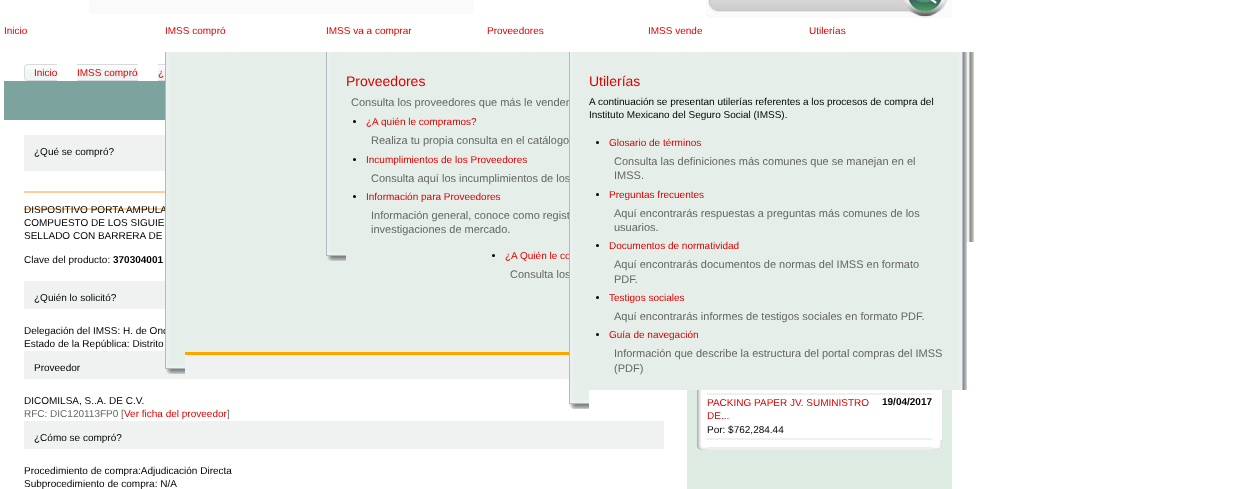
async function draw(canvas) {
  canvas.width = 1238
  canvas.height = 489
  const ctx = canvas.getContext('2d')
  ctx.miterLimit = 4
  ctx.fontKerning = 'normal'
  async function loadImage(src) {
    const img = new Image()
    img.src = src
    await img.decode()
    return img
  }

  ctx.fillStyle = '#fff'
  ctx.fillRect(0, 0, 1238, 489)
  ctx.fillStyle = '#fafafa'
  ctx.fillRect(89, 0, 385, 14)
  ctx.drawImage(await loadImage('image0.png'), 706, 0, 246, 18)
  ctx.font = '10px Liberation Sans'
  ctx.fillStyle = '#d00'
  ctx.fillText('Inicio', 4, 34)
  ctx.fillText('IMSS compró', 165, 34)
  ctx.fillText('IMSS va a comprar', 326, 34)
  ctx.fillText('Proveedores', 487, 34)
  ctx.fillText('IMSS vende', 648, 34)
  ctx.fillText('Utilerías', 809, 34)
  ctx.fillStyle = '#f0f2f1'
  ctx.fillRect(24, 351, 545, 28)
  ctx.fillStyle = '#e5eee9'
  ctx.fillRect(185, 52, 384, 300)
  ctx.drawImage(await loadImage('image1.png'), 326, 52, 4, 190)
  ctx.font = '14px Liberation Sans'
  ctx.fillStyle = '#d00'
  ctx.fillText('Proveedores', 346, 86)
  ctx.font = '11px Liberation Sans'
  ctx.fillStyle = '#666'
  ctx.fillText('Consulta los proveedores que más le venden', 351, 106)
  ctx.fillStyle = '#000'
  ctx.beginPath()
  ctx.arc(354.5, 121.5, 1.5, 0, 2 * Math.PI)
  ctx.fill()
  ctx.font = '10px Liberation Sans'
  ctx.fillStyle = '#d00'
  ctx.fillText('¿A quién le compramos?', 366, 125)
  ctx.font = '11px Liberation Sans'
  ctx.fillStyle = '#666'
  ctx.fillText('Realiza tu propia consulta en el catálogo', 371, 144)
  ctx.fillStyle = '#000'
  ctx.beginPath()
  ctx.arc(354.5, 159.5, 1.5, 0, 2 * Math.PI)
  ctx.fill()
  ctx.font = '10px Liberation Sans'
  ctx.fillStyle = '#d00'
  ctx.fillText('Incumplimientos de los Proveedores', 366, 163)
  ctx.font = '11px Liberation Sans'
  ctx.fillStyle = '#666'
  ctx.fillText('Consulta aquí los incumplimientos de los', 371, 182)
  ctx.fillStyle = '#000'
  ctx.beginPath()
  ctx.arc(354.5, 196.5, 1.5, 0, 2 * Math.PI)
  ctx.fill()
  ctx.font = '10px Liberation Sans'
  ctx.fillStyle = '#d00'
  ctx.fillText('Información para Proveedores', 366, 200)
  ctx.font = '11px Liberation Sans'
  ctx.fillStyle = '#666'
  ctx.fillText('Información general, conoce como regist', 371, 219)
  ctx.fillText('investigaciones de mercado.', 371, 233)
  ctx.drawImage(await loadImage('image2.png'), 967, 114, 7, 128)
  ctx.drawImage(await loadImage('image3.png'), 326, 242, 20, 19)
  ctx.font = '10px Liberation Sans'
  ctx.fillStyle = '#d00'
  ctx.fillText('¿A Quién le co', 505, 259)
  ctx.font = '11px Liberation Sans'
  ctx.fillStyle = '#666'
  ctx.fillText('Consulta los', 510, 278)
  ctx.drawImage(await loadImage('image4.png'), 569, 52, 20, 338)
  ctx.fillStyle = '#e5eee9'
  ctx.fillRect(589, 52, 360, 338)
  ctx.font = '14px Liberation Sans'
  ctx.fillStyle = '#d00'
  ctx.fillText('Utilerías', 589, 86)
  ctx.font = '10px Liberation Sans'
  ctx.fillStyle = '#000'
  ctx.fillText('A continuación se presentan utilerías referentes a los procesos de compra del', 589, 105)
  ctx.fillText('Instituto Mexicano del Seguro Social (IMSS).', 589, 118)
  ctx.beginPath()
  ctx.arc(597.5, 142.5, 1.5, 0, 2 * Math.PI)
  ctx.fill()
  ctx.fillStyle = '#d00'
  ctx.fillText('Glosario de términos', 609, 146)
  ctx.font = '11px Liberation Sans'
  ctx.fillStyle = '#666'
  ctx.fillText('Consulta las definiciones más comunes que se manejan en el', 614, 165)
  ctx.fillText('IMSS.', 614, 179)
  ctx.fillStyle = '#000'
  ctx.beginPath()
  ctx.arc(597.5, 194.5, 1.5, 0, 2 * Math.PI)
  ctx.fill()
  ctx.font = '10px Liberation Sans'
  ctx.fillStyle = '#d00'
  ctx.fillText('Preguntas frecuentes', 609, 198)
  ctx.font = '11px Liberation Sans'
  ctx.fillStyle = '#666'
  ctx.fillText('Aquí encontrarás respuestas a preguntas más comunes de los', 614, 217)
  ctx.fillText('usuarios.', 614, 231)
  ctx.fillStyle = '#000'
  ctx.beginPath()
  ctx.arc(597.5, 245.5, 1.5, 0, 2 * Math.PI)
  ctx.fill()
  ctx.font = '10px Liberation Sans'
  ctx.fillStyle = '#d00'
  ctx.fillText('Documentos de normatividad', 609, 249)
  ctx.font = '11px Liberation Sans'
  ctx.fillStyle = '#666'
  ctx.fillText('Aquí encontrarás documentos de normas del IMSS en formato', 614, 268)
  ctx.fillText('PDF.', 614, 283)
  ctx.fillStyle = '#000'
  ctx.beginPath()
  ctx.arc(597.5, 297.5, 1.5, 0, 2 * Math.PI)
  ctx.fill()
  ctx.font = '10px Liberation Sans'
  ctx.fillStyle = '#d00'
  ctx.fillText('Testigos sociales', 609, 301)
  ctx.font = '11px Liberation Sans'
  ctx.fillStyle = '#666'
  ctx.fillText('Aquí encontrarás informes de testigos sociales en formato PDF.', 614, 320)
  ctx.fillStyle = '#000'
  ctx.beginPath()
  ctx.arc(597.5, 334.5, 1.5, 0, 2 * Math.PI)
  ctx.fill()
  ctx.font = '10px Liberation Sans'
  ctx.fillStyle = '#d00'
  ctx.fillText('Guía de navegación', 609, 338)
  ctx.font = '11px Liberation Sans'
  ctx.fillStyle = '#666'
  ctx.fillText('Información que describe la estructura del portal compras del IMSS', 614, 357)
  ctx.fillText('(PDF)', 614, 372)
  ctx.drawImage(await loadImage('image5.png'), 949, 52, 18, 338)
  ctx.drawImage(await loadImage('image6.png'), 569, 390, 20, 19)
  ctx.drawImage(await loadImage('image7.png'), 967, 52, 7, 62)
  ctx.fillStyle = '#fed190'
  ctx.fillRect(24, 208, 141, 2)
  ctx.font = '10px Liberation Sans'
  ctx.fillStyle = '#000'
  ctx.fillText('DISPOSITIVO PORTA AMPULA', 24, 213)
  ctx.fillText('Delegación del IMSS: H. de Onc', 24, 334)
  ctx.drawImage(await loadImage('image8.png'), 165, 52, 20, 303)
  ctx.fillStyle = '#ffa500'
  ctx.fillRect(185, 352, 384, 3)
  ctx.fillStyle = '#000'
  ctx.beginPath()
  ctx.arc(493.5, 255.5, 1.5, 0, 2 * Math.PI)
  ctx.fill()
  ctx.drawImage(await loadImage('image9.png'), 165, 355, 20, 19)
  ctx.drawImage(await loadImage('image10.png'), 24, 64, 10, 17)
  ctx.drawImage(await loadImage('image11.png'), 34, 64, 23, 17)
  ctx.fillStyle = '#d00'
  ctx.fillText('Inicio', 34, 76)
  ctx.drawImage(await loadImage('image12.png'), 77, 64, 61, 17)
  ctx.fillText('IMSS compró', 77, 76)
  ctx.drawImage(await loadImage('image13.png'), 158, 64, 7, 17)
  ctx.fillText('¿', 158, 76)
  ctx.fillStyle = '#7ca39e'
  ctx.fillRect(4, 81, 161, 39)
  ctx.fillStyle = '#f0f2f1'
  ctx.fillRect(24, 135, 141, 36)
  ctx.fillStyle = '#000'
  ctx.fillText('¿Qué se compró?', 34, 155)
  ctx.fillStyle = '#fed190'
  ctx.fillRect(24, 191, 141, 2)
  ctx.fillStyle = '#000'
  ctx.fillText('COMPUESTO DE LOS SIGUIE', 24, 226)
  ctx.fillText('SELLADO CON BARRERA DE', 24, 239)
  ctx.fillText('Clave del producto:', 24, 263)
  ctx.font = 'bold 10px Liberation Sans'
  ctx.fillText('370304001', 113, 263)
  ctx.fillStyle = '#f0f2f1'
  ctx.fillRect(24, 281, 141, 28)
  ctx.font = '10px Liberation Sans'
  ctx.fillStyle = '#000'
  ctx.fillText('¿Quién lo solicitó?', 34, 301)
  ctx.fillText('Estado de la República: Distrito', 24, 347)
  ctx.fillText('Proveedor', 34, 371)
  ctx.fillText('DICOMILSA, S..A. DE C.V.', 24, 404)
  ctx.fillStyle = '#666'
  ctx.fillText('RFC: DIC120113FP0 [', 24, 417)
  ctx.fillStyle = '#d00'
  ctx.fillText('Ver ficha del proveedor', 124, 417)
  ctx.fillStyle = '#666'
  ctx.fillText(']', 227, 417)
  ctx.fillStyle = '#f0f2f1'
  ctx.fillRect(24, 421, 640, 28)
  ctx.fillStyle = '#000'
  ctx.fillText('¿Cómo se compró?', 34, 441)
  ctx.fillText('Procedimiento de compra:Adjudicación Directa', 24, 474)
  ctx.fillText('Subprocedimiento de compra: N/A', 24, 487)
  ctx.fillStyle = '#deebe2'
  ctx.fillRect(687, 390, 265, 99)
  ctx.fillStyle = '#fff'
  ctx.fillRect(701, 390, 241, 57)
  ctx.drawImage(await loadImage('image14.png'), 697, 390, 4, 5)
  ctx.fillStyle = '#eff1f1'
  ctx.fillRect(707, 393, 225, 2)
  ctx.drawImage(await loadImage('image15.png'), 697, 395, 4, 45)
  ctx.fillStyle = '#d00'
  ctx.fillText('PACKING PAPER JV. SUMINISTRO', 707, 406)
  ctx.font = 'bold 10px Liberation Sans'
  ctx.fillStyle = '#000'
  ctx.fillText('19/04/2017', 882, 405)
  ctx.font = '10px Liberation Sans'
  ctx.fillStyle = '#d00'
  ctx.fillText('DE...', 707, 419)
  ctx.fillStyle = '#000'
  ctx.fillText('Por: $762,284.44', 707, 433)
  ctx.fillStyle = '#eff1f1'
  ctx.fillRect(707, 438, 225, 2)
  ctx.drawImage(await loadImage('image16.png'), 697, 440, 10, 10)
  ctx.fillStyle = '#eee'
  ctx.fillRect(707, 447, 225, 3)
  ctx.drawImage(await loadImage('image17.png'), 932, 440, 10, 10)
}

draw(document.querySelector('canvas'))
